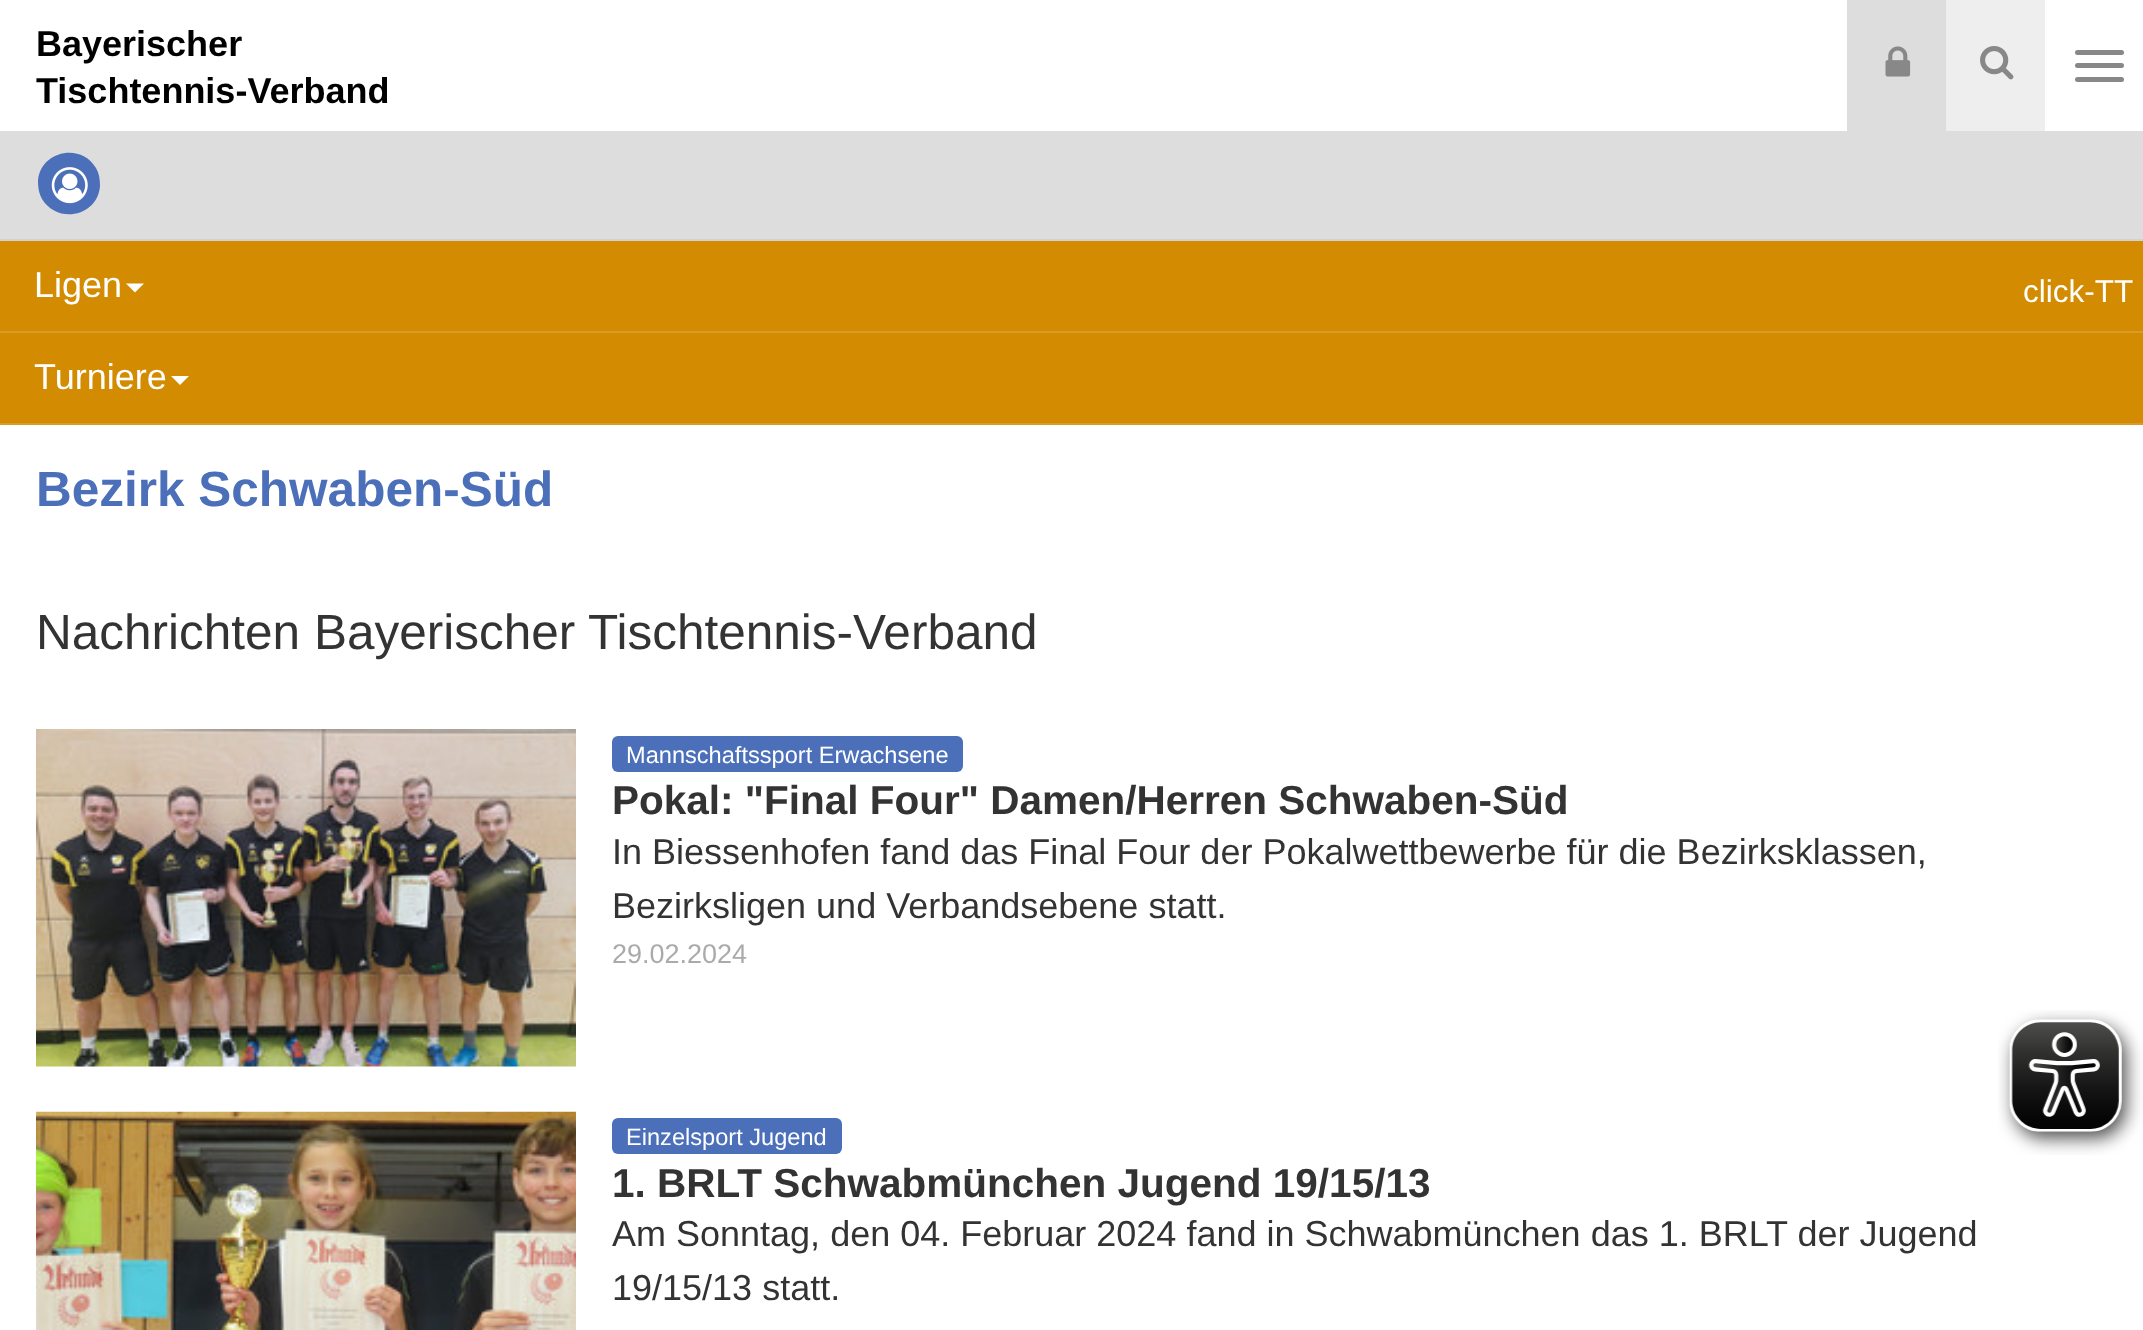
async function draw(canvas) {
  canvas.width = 2143
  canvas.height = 1330
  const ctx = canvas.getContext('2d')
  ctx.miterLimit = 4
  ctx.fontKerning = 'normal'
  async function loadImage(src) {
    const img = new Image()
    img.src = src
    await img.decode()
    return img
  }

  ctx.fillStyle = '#fff'
  ctx.fillRect(0, 0, 2143, 1330)
  ctx.font = 'bold 36px Liberation Sans'
  ctx.fillStyle = '#000'
  ctx.fillText('Bayerischer', 36, 56)
  ctx.fillText('Tischtennis-Verband', 36, 103)
  ctx.fillStyle = '#ddd'
  ctx.fillRect(1847, 0, 99, 131)
  ctx.drawImage(await loadImage('image0.png'), 1885, 46, 26, 31)
  ctx.fillStyle = '#eee'
  ctx.fillRect(1946, 0, 99, 131)
  ctx.drawImage(await loadImage('image1.png'), 1980, 46, 34, 34)
  ctx.fillStyle = '#888'
  ctx.beginPath()
  ctx.roundRect(2075, 50, 49, 5, 2.5)
  ctx.fill()
  ctx.beginPath()
  ctx.roundRect(2075, 63, 49, 5, 2.5)
  ctx.fill()
  ctx.beginPath()
  ctx.roundRect(2075, 77, 49, 5, 2.5)
  ctx.fill()
  ctx.fillStyle = '#ddd'
  ctx.fillRect(0, 131, 2143, 108)
  ctx.fillStyle = '#d2d2d2'
  ctx.fillRect(0, 239, 2143, 2)
  ctx.fillStyle = '#4b70b9'
  ctx.beginPath()
  ctx.moveTo(96, 168)
  ctx.bezierCurveTo(99, 173, 100, 179, 100, 186)
  ctx.bezierCurveTo(98, 216, 58, 225, 42, 199)
  ctx.bezierCurveTo(39, 194, 38, 188, 38, 181)
  ctx.bezierCurveTo(40, 151, 81, 142, 96, 168)
  ctx.closePath()
  ctx.fill()
  ctx.drawImage(await loadImage('image2.png'), 51, 167, 37, 37)
  ctx.fillStyle = '#d38b02'
  ctx.fillRect(0, 241, 2143, 182)
  ctx.fillStyle = '#da9c28'
  ctx.fillRect(0, 331, 2143, 2)
  ctx.font = '36px Liberation Sans'
  ctx.fillStyle = '#fff'
  ctx.fillText('Ligen', 34, 297)
  ctx.beginPath()
  ctx.moveTo(126, 283.5)
  ctx.lineTo(144, 283.5)
  ctx.lineTo(135, 292.5)
  ctx.closePath()
  ctx.fill()
  ctx.font = '31.5px Liberation Sans'
  ctx.fillText('click-TT', 2023, 302)
  ctx.fillStyle = '#da9c28'
  ctx.fillRect(0, 423, 2143, 2)
  ctx.font = '36px Liberation Sans'
  ctx.fillStyle = '#fff'
  ctx.fillText('Turniere', 34, 389)
  ctx.beginPath()
  ctx.moveTo(171, 376)
  ctx.lineTo(189, 376)
  ctx.lineTo(180, 385)
  ctx.closePath()
  ctx.fill()
  ctx.font = 'bold 49.5px Liberation Sans'
  ctx.fillStyle = '#4b70b9'
  ctx.fillText('Bezirk Schwaben-Süd', 36, 506)
  ctx.font = '49.5px Liberation Sans'
  ctx.fillStyle = '#333'
  ctx.fillText('Nachrichten Bayerischer Tischtennis-Verband', 36, 649)
  ctx.drawImage(await loadImage('image3.png'), 36, 729, 540, 338)
  ctx.fillStyle = '#4b70b9'
  ctx.beginPath()
  ctx.roundRect(612, 736, 351, 36, 6)
  ctx.fill()
  ctx.font = '23.6px Liberation Sans'
  ctx.fillStyle = '#fff'
  ctx.fillText('Mannschaftssport Erwachsene', 626, 763)
  ctx.font = 'bold 40.5px Liberation Sans'
  ctx.fillStyle = '#333'
  ctx.fillText('Pokal: "Final Four" Damen/Herren Schwaben-Süd', 612, 814)
  ctx.font = '36px Liberation Sans'
  ctx.fillText('In Biessenhofen fand das Final Four der Pokalwettbewerbe für die Bezirksklassen,', 612, 864)
  ctx.fillText('Bezirksligen und Verbandsebene statt.', 612, 918)
  ctx.font = '27px Liberation Sans'
  ctx.fillStyle = '#aaa'
  ctx.fillText('29.02.2024', 612, 963)
  ctx.drawImage(await loadImage('image4.png'), 36, 1111, 540, 219)
  ctx.fillStyle = '#4b70b9'
  ctx.beginPath()
  ctx.roundRect(612, 1118, 230, 36, 6)
  ctx.fill()
  ctx.font = '23.6px Liberation Sans'
  ctx.fillStyle = '#fff'
  ctx.fillText('Einzelsport Jugend', 626, 1145)
  ctx.font = 'bold 40.5px Liberation Sans'
  ctx.fillStyle = '#333'
  ctx.fillText('1. BRLT Schwabmünchen Jugend 19/15/13', 612, 1197)
  ctx.font = '36px Liberation Sans'
  ctx.fillText('Am Sonntag, den 04. Februar 2024 fand in Schwabmünchen das 1. BRLT der Jugend', 612, 1246)
  ctx.fillText('19/15/13 statt.', 612, 1300)
  ctx.drawImage(await loadImage('image5.png'), 1998, 1010, 145, 145)
}

draw(document.querySelector('canvas'))
